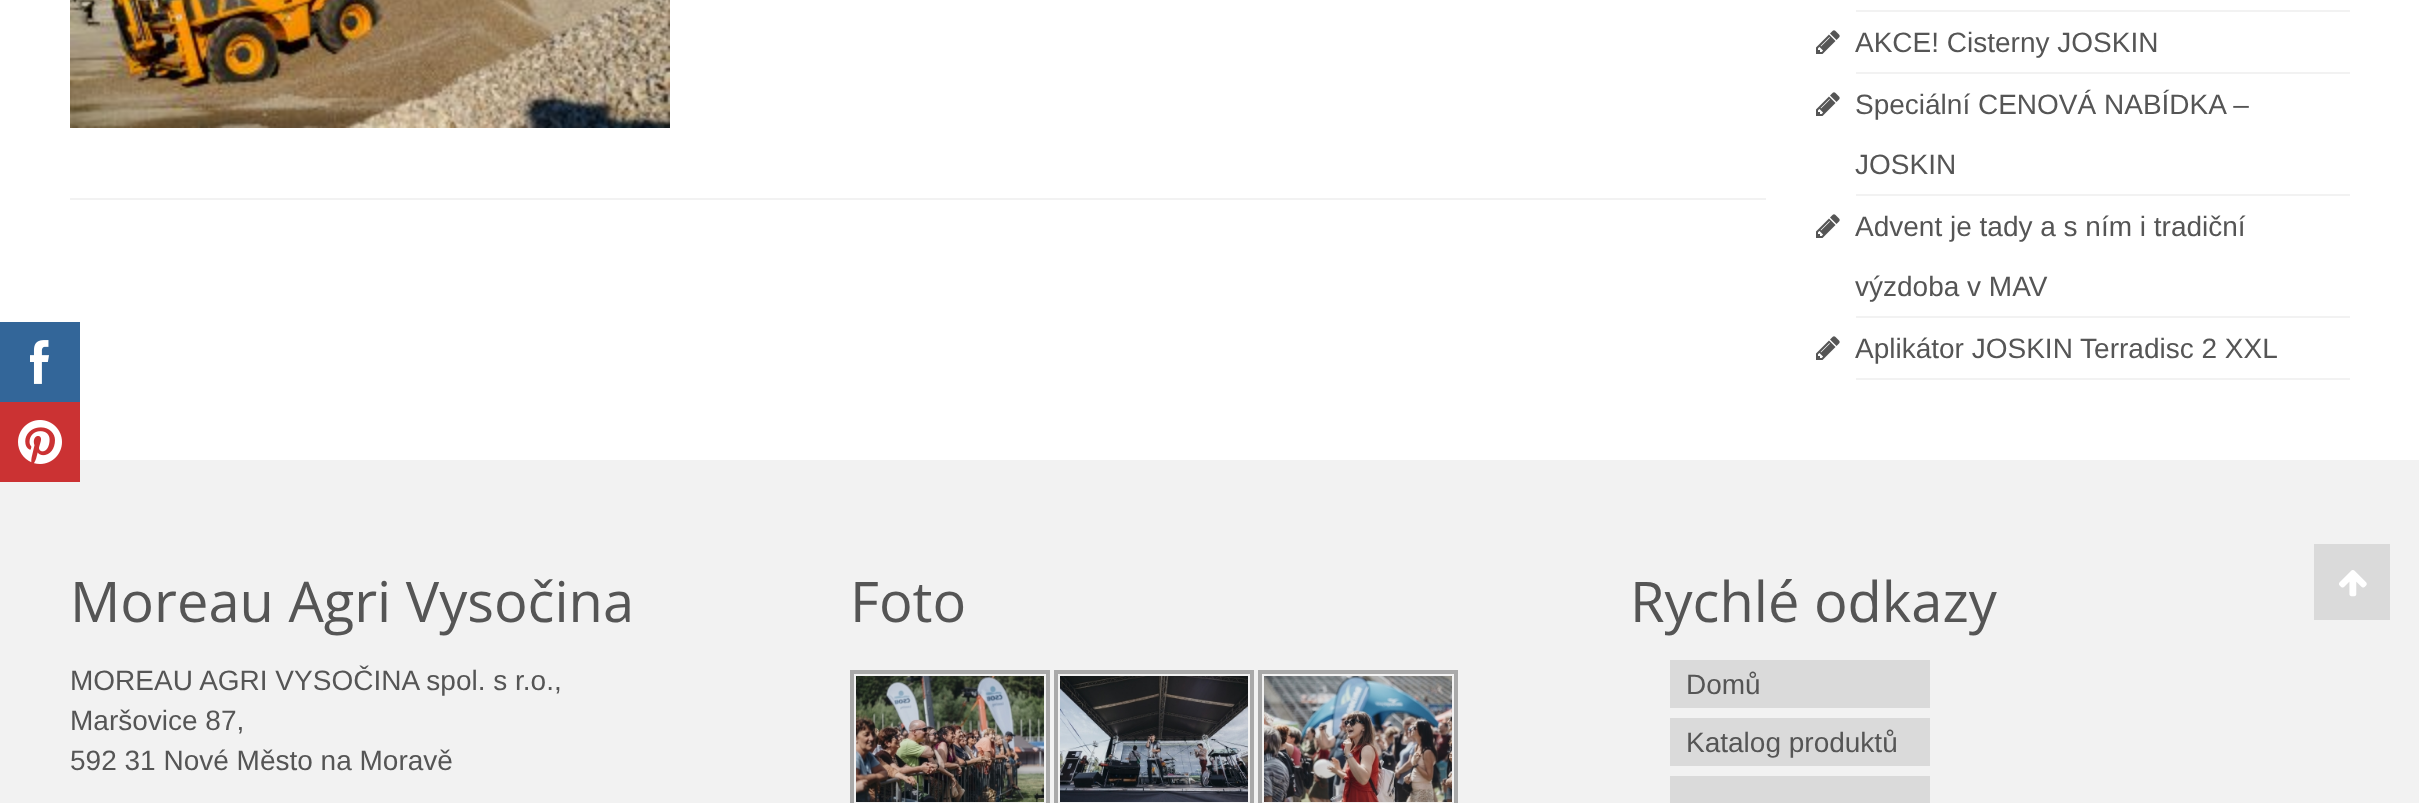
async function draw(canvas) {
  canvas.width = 2419
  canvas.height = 803
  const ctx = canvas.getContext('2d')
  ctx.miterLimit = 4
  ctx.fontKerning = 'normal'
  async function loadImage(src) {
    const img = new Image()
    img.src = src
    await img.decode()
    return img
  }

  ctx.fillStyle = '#fff'
  ctx.fillRect(0, 0, 2419, 803)
  ctx.drawImage(await loadImage('image0.png'), 70, 0, 600, 128)
  ctx.fillStyle = '#f2f2f2'
  ctx.fillRect(70, 198, 1696, 2)
  ctx.fillRect(1856, 10, 494, 2)
  ctx.fillRect(1856, 72, 494, 2)
  ctx.drawImage(await loadImage('image1.png'), 1816, 30, 24, 24)
  ctx.font = '28px Liberation Sans'
  ctx.fillStyle = '#555'
  ctx.fillText('AKCE! Cisterny JOSKIN', 1855, 52)
  ctx.fillStyle = '#f2f2f2'
  ctx.fillRect(1856, 194, 494, 2)
  ctx.drawImage(await loadImage('image1.png'), 1816, 92, 24, 24)
  ctx.fillStyle = '#555'
  ctx.fillText('Speciální CENOVÁ NABÍDKA –', 1855, 114)
  ctx.fillText('JOSKIN', 1855, 174)
  ctx.fillStyle = '#f2f2f2'
  ctx.fillRect(1856, 316, 494, 2)
  ctx.drawImage(await loadImage('image1.png'), 1816, 214, 24, 24)
  ctx.fillStyle = '#555'
  ctx.fillText('Advent je tady a s ním i tradiční', 1855, 236)
  ctx.fillText('výzdoba v MAV', 1855, 296)
  ctx.fillStyle = '#f2f2f2'
  ctx.fillRect(1856, 378, 494, 2)
  ctx.drawImage(await loadImage('image1.png'), 1816, 336, 24, 24)
  ctx.fillStyle = '#555'
  ctx.fillText('Aplikátor JOSKIN Terradisc 2 XXL', 1855, 358)
  ctx.fillStyle = '#369'
  ctx.fillRect(0, 322, 80, 80)
  ctx.drawImage(await loadImage('image2.png'), 30, 340, 19, 44)
  ctx.fillStyle = '#f2f2f2'
  ctx.fillRect(0, 460, 2419, 343)
  ctx.fillStyle = '#cb3233'
  ctx.fillRect(0, 402, 80, 80)
  ctx.drawImage(await loadImage('image3.png'), 18, 420, 44, 44)
  ctx.font = '56px Open Sans'
  ctx.fillStyle = '#555'
  ctx.fillText('Moreau Agri Vysočina', 70, 622)
  ctx.font = '28px Liberation Sans'
  ctx.fillText('MOREAU AGRI VYSOČINA spol. s r.o.,', 70, 690)
  ctx.fillText('Maršovice 87,', 70, 730)
  ctx.fillText('592 31 Nové Město na Moravě', 70, 770)
  ctx.font = '56px Open Sans'
  ctx.fillText('Foto', 850, 622)
  ctx.strokeStyle = '#a9a9a9'
  ctx.lineWidth = 4
  ctx.strokeRect(852, 672, 196, 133)
  ctx.drawImage(await loadImage('image4.png'), 856, 676, 188, 126)
  ctx.strokeRect(1056, 672, 196, 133)
  ctx.drawImage(await loadImage('image5.png'), 1060, 676, 188, 126)
  ctx.strokeRect(1260, 672, 196, 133)
  ctx.drawImage(await loadImage('image6.png'), 1264, 676, 188, 126)
  ctx.fillText('Rychlé odkazy', 1630, 622)
  ctx.fillStyle = '#dadada'
  ctx.fillRect(1670, 660, 260, 48)
  ctx.font = '28px Liberation Sans'
  ctx.fillStyle = '#555'
  ctx.fillText('Domů', 1686, 694)
  ctx.fillStyle = '#dadada'
  ctx.fillRect(1670, 718, 260, 48)
  ctx.fillStyle = '#555'
  ctx.fillText('Katalog produktů', 1686, 752)
  ctx.fillStyle = '#dadada'
  ctx.fillRect(1670, 776, 260, 27)
  ctx.fillRect(2314, 544, 76, 76)
  ctx.drawImage(await loadImage('image7.png'), 2339, 570, 28, 27)
}

draw(document.querySelector('canvas'))
